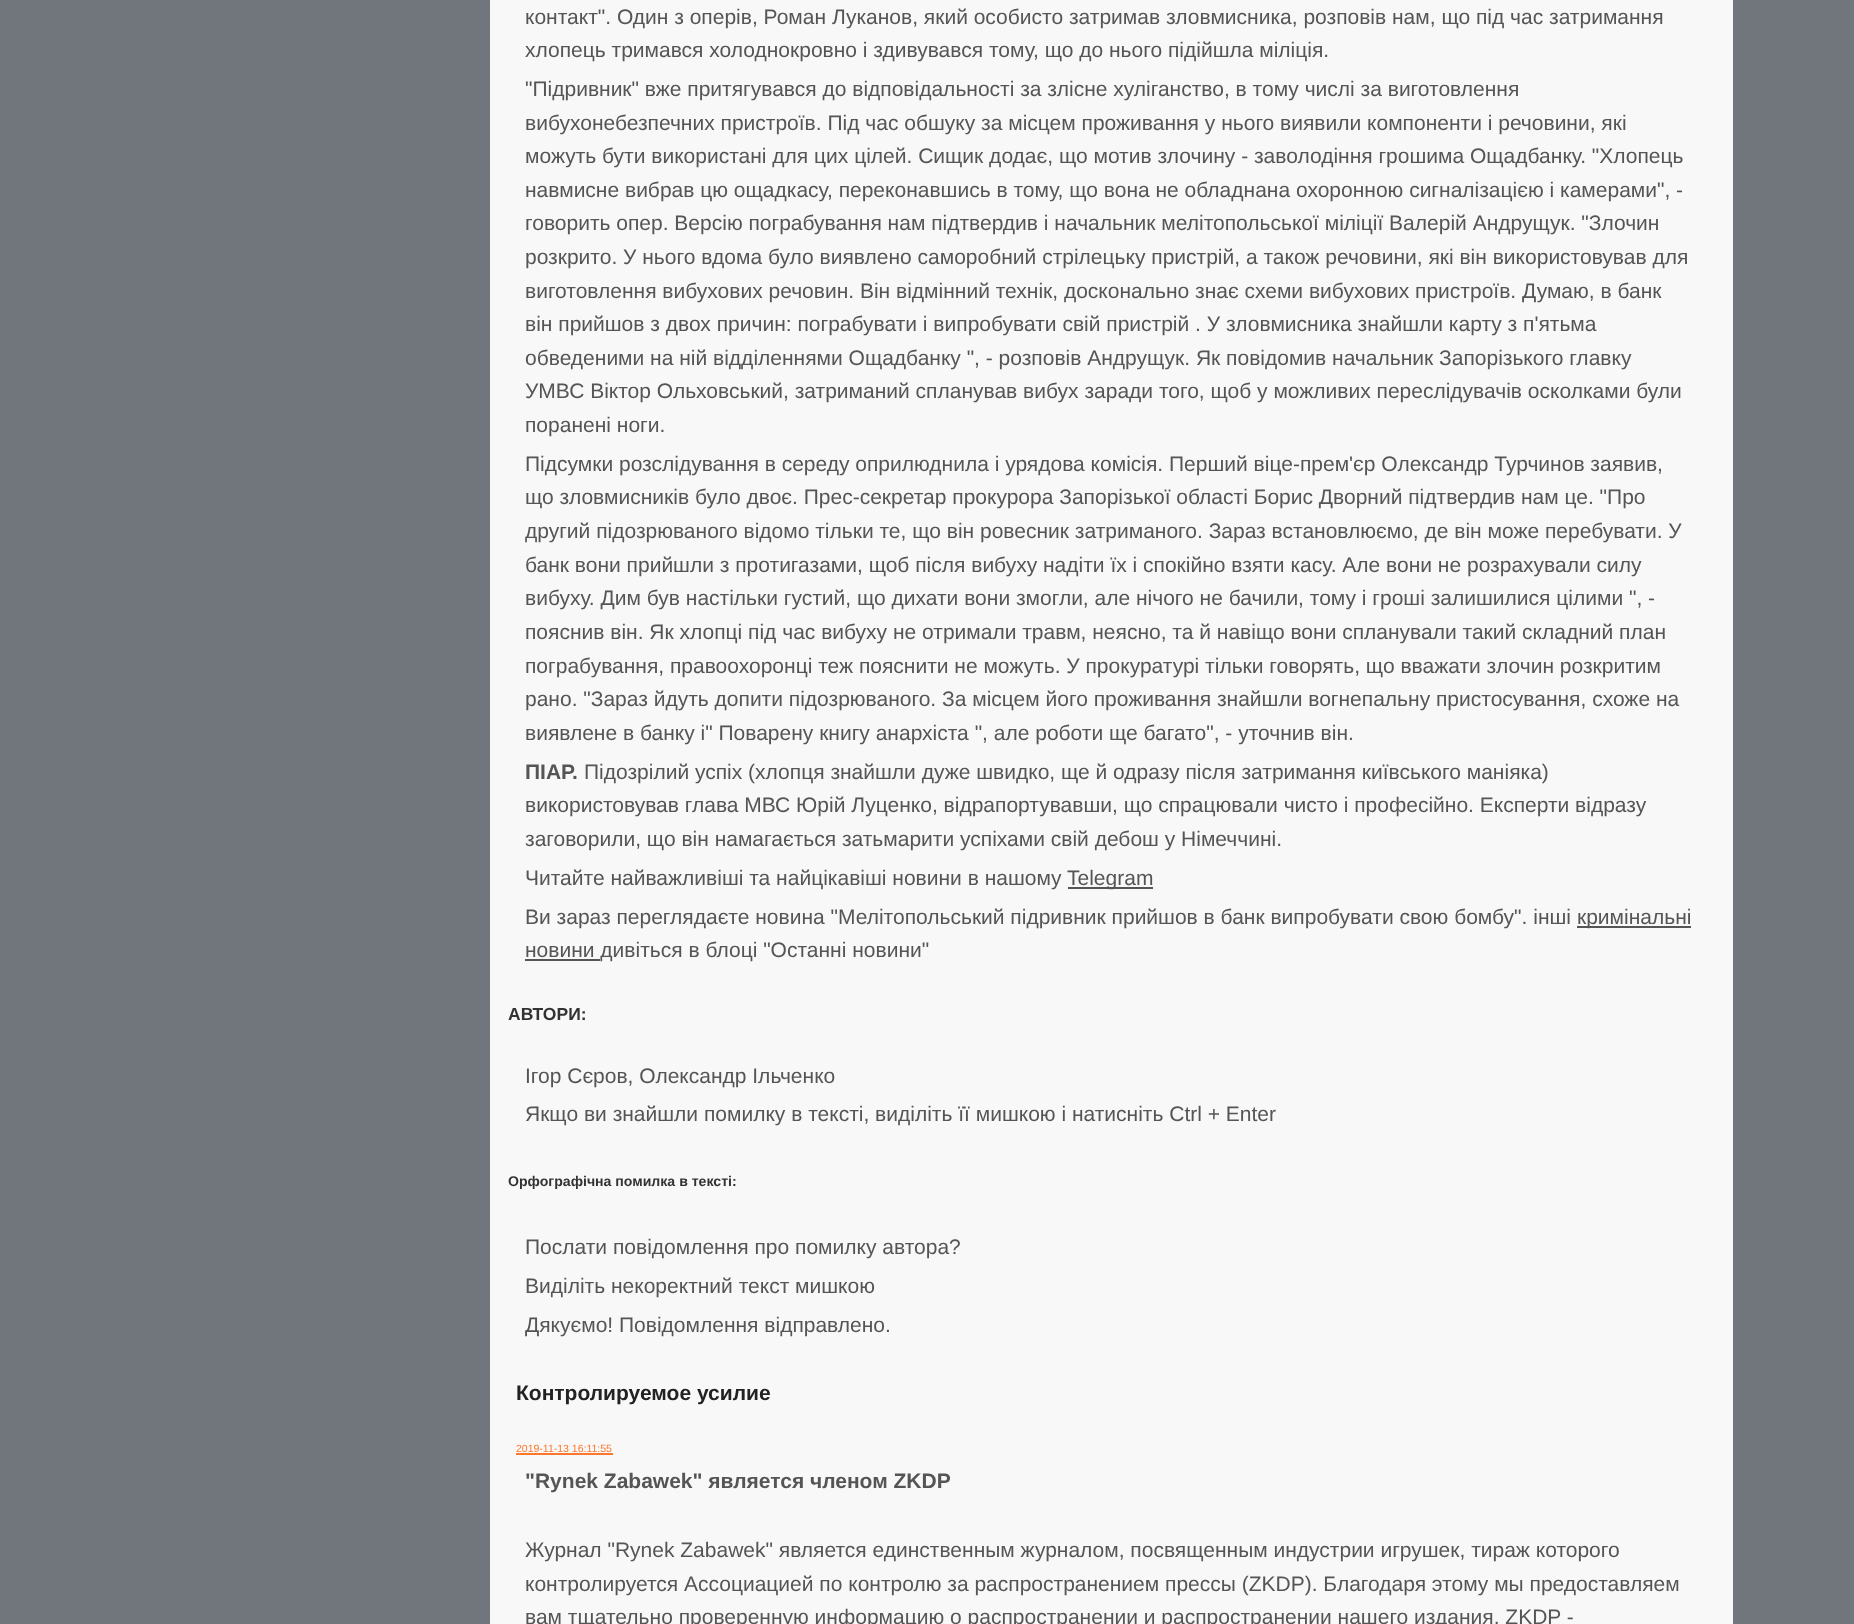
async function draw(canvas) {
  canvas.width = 1854
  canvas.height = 1624
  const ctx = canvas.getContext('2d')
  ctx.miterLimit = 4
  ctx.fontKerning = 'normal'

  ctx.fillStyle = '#71767c'
  ctx.fillRect(0, 0, 1854, 1624)
  ctx.fillStyle = '#f8f8f8'
  ctx.fillRect(490, 0, 1243, 1624)
  ctx.font = '21px Liberation Sans'
  ctx.fillStyle = '#555'
  ctx.fillText('контакт". Один з оперів, Роман Луканов, який особисто затримав зловмисника, розповів нам, що під час затримання', 525, 24)
  ctx.fillText('хлопець тримався холоднокровно і здивувався тому, що до нього підійшла міліція.', 525, 57)
  ctx.fillText('"Підривник" вже притягувався до відповідальності за злісне хуліганство, в тому числі за виготовлення', 525, 96)
  ctx.fillText('вибухонебезпечних пристроїв. Під час обшуку за місцем проживання у нього виявили компоненти і речовини, які', 525, 130)
  ctx.fillText('можуть бути використані для цих цілей. Сищик додає, що мотив злочину - заволодіння грошима Ощадбанку. "Хлопець', 525, 163)
  ctx.fillText('навмисне вибрав цю ощадкасу, переконавшись в тому, що вона не обладнана охоронною сигналізацією і камерами", -', 525, 197)
  ctx.fillText('говорить опер. Версію пограбування нам підтвердив і начальник мелітопольської міліції Валерій Андрущук. "Злочин', 525, 230)
  ctx.fillText('розкрито. У нього вдома було виявлено саморобний стрілецьку пристрій, а також речовини, які він використовував для', 525, 264)
  ctx.fillText('виготовлення вибухових речовин. Він відмінний технік, досконально знає схеми вибухових пристроїв. Думаю, в банк', 525, 298)
  ctx.fillText('він прийшов з двох причин: пограбувати і випробувати свій пристрій . У зловмисника знайшли карту з п\'ятьма', 525, 331)
  ctx.fillText('обведеними на ній відділеннями Ощадбанку ", - розповів Андрущук. Як повідомив начальник Запорізького главку', 525, 365)
  ctx.fillText('УМВС Віктор Ольховський, затриманий спланував вибух заради того, щоб у можливих переслідувачів осколками були', 525, 398)
  ctx.fillText('поранені ноги.', 525, 432)
  ctx.fillText('Підсумки розслідування в середу оприлюднила і урядова комісія. Перший віце-прем\'єр Олександр Турчинов заявив,', 525, 471)
  ctx.fillText('що зловмисників було двоє. Прес-секретар прокурора Запорізької області Борис Дворний підтвердив нам це. "Про', 525, 504)
  ctx.fillText('другий підозрюваного відомо тільки те, що він ровесник затриманого. Зараз встановлюємо, де він може перебувати. У', 525, 538)
  ctx.fillText('банк вони прийшли з протигазами, щоб після вибуху надіти їх і спокійно взяти касу. Але вони не розрахували силу', 525, 572)
  ctx.fillText('вибуху. Дим був настільки густий, що дихати вони змогли, але нічого не бачили, тому і гроші залишилися цілими ", -', 525, 605)
  ctx.fillText('пояснив він. Як хлопці під час вибуху не отримали травм, неясно, та й навіщо вони спланували такий складний план', 525, 639)
  ctx.fillText('пограбування, правоохоронці теж пояснити не можуть. У прокуратурі тільки говорять, що вважати злочин розкритим', 525, 673)
  ctx.fillText('рано. "Зараз йдуть допити підозрюваного. За місцем його проживання знайшли вогнепальну пристосування, схоже на', 525, 706)
  ctx.fillText('виявлене в банку і" Поварену книгу анархіста ", але роботи ще багато", - уточнив він.', 525, 740)
  ctx.font = 'bold 21px Liberation Sans'
  ctx.fillText('ПІАР.', 525, 779)
  ctx.font = '21px Liberation Sans'
  ctx.fillText('Підозрілий успіх (хлопця знайшли дуже швидко, ще й одразу після затримання київського маніяка)', 584, 779)
  ctx.fillText('використовував глава МВС Юрій Луценко, відрапортувавши, що спрацювали чисто і професійно. Експерти відразу', 525, 812)
  ctx.fillText('заговорили, що він намагається затьмарити успіхами свій дебош у Німеччині.', 525, 846)
  ctx.fillText('Читайте найважливіші та найцікавіші новини в нашому', 525, 885)
  ctx.fillRect(1068, 887, 85, 2)
  ctx.fillText('Telegram', 1067, 885)
  ctx.fillText('Ви зараз переглядаєте новина "Мелітопольський підривник прийшов в банк випробувати свою бомбу". інші', 525, 924)
  ctx.fillRect(1577, 926, 114, 2)
  ctx.fillText('кримінальні', 1577, 924)
  ctx.fillRect(525, 959, 75, 2)
  ctx.fillText('новини дивіться в блоці "Останні новини"', 525, 957)
  ctx.font = 'bold 17.5px Liberation Sans'
  ctx.fillStyle = '#333'
  ctx.fillText('АВТОРИ:', 508, 1020)
  ctx.font = '21px Liberation Sans'
  ctx.fillStyle = '#555'
  ctx.fillText('Ігор Сєров, Олександр Ільченко', 525, 1083)
  ctx.fillText('Якщо ви знайшли помилку в тексті, виділіть її мишкою і натисніть Ctrl + Enter', 525, 1121)
  ctx.font = 'bold 14.1px Liberation Sans'
  ctx.fillStyle = '#333'
  ctx.fillText('Орфографічна помилка в тексті:', 508, 1186)
  ctx.font = '21px Liberation Sans'
  ctx.fillStyle = '#555'
  ctx.fillText('Послати повідомлення про помилку автора?', 525, 1254)
  ctx.fillText('Виділіть некоректний текст мишкою', 525, 1293)
  ctx.fillText('Дякуємо! Повідомлення відправлено.', 525, 1332)
  ctx.font = 'bold 21px Liberation Sans'
  ctx.fillStyle = '#222'
  ctx.fillText('Контролируемое усилие', 516, 1400)
  ctx.font = '10.5px Liberation Sans'
  ctx.fillStyle = '#fe772d'
  ctx.fillText('2019-11-13 16:11:55', 516, 1452)
  ctx.fillRect(516, 1453, 97, 2)
  ctx.font = 'bold 21px Liberation Sans'
  ctx.fillStyle = '#555'
  ctx.fillText('"Rynek Zabawek" является членом ZKDP', 525, 1488)
  ctx.font = '21px Liberation Sans'
  ctx.fillText('Журнал "Rynek Zabawek" является единственным журналом, посвященным индустрии игрушек, тираж которого', 525, 1557)
  ctx.fillText('контролируется Ассоциацией по контролю за распространением прессы (ZKDP). Благодаря этому мы предоставляем', 525, 1591)
  ctx.fillText('вам тщательно проверенную информацию о распространении и распространении нашего издания. ZKDP -', 525, 1624)
}

draw(document.querySelector('canvas'))
